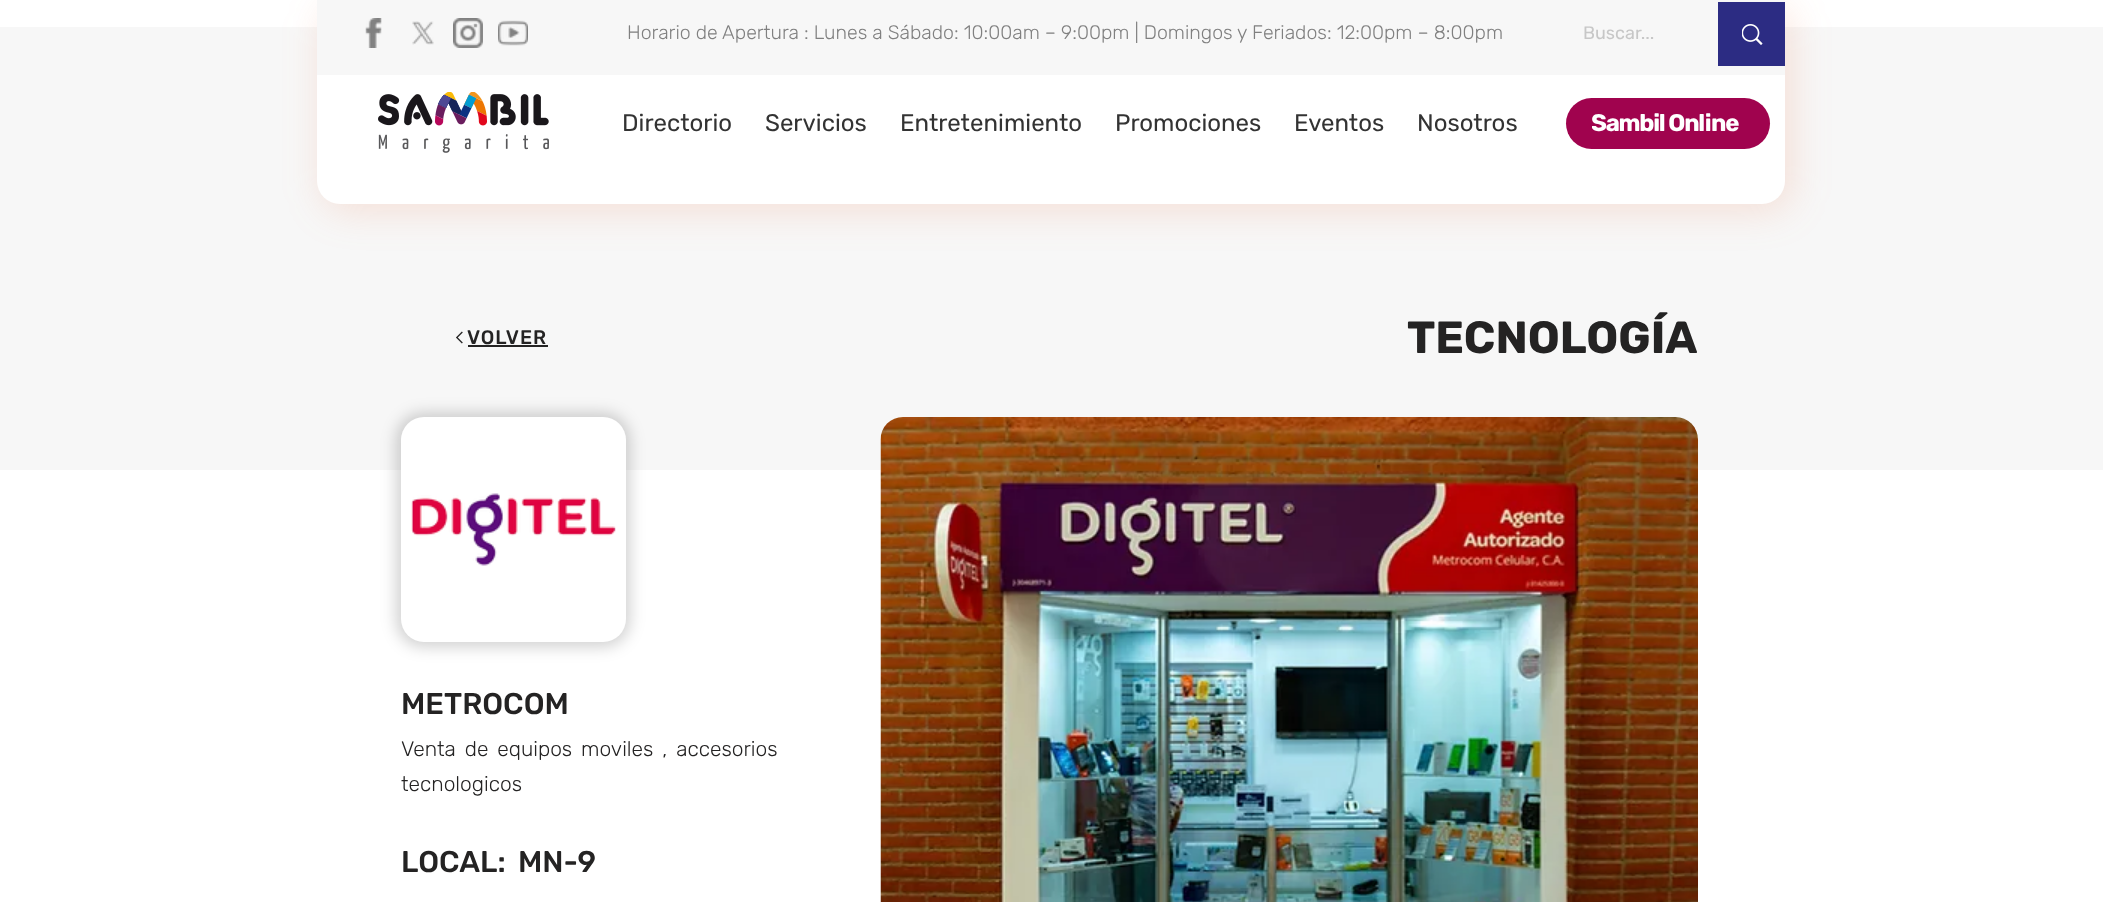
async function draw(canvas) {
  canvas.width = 2103
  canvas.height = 902
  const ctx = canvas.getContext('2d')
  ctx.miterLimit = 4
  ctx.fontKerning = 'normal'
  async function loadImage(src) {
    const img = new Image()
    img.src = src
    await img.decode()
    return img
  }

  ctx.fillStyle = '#fff'
  ctx.fillRect(0, 0, 2103, 902)
  ctx.fillStyle = '#f7f7f7'
  ctx.fillRect(0, 27, 2103, 443)
  ctx.fillStyle = '#ed774330'
  ctx.filter = 'blur(19.5px)'
  ctx.beginPath()
  ctx.roundRect(323, 6, 1468, 204, 23)
  ctx.fill()
  ctx.filter = 'none'
  ctx.fillStyle = '#fff'
  ctx.beginPath()
  ctx.roundRect(317, 0, 1468, 204, [0, 0, 23, 23])
  ctx.fill()
  ctx.fillStyle = '#f7f7f7'
  ctx.fillRect(317, 0, 1468, 75)
  ctx.drawImage(await loadImage('image0.png'), 365, 18, 17, 30)
  ctx.drawImage(await loadImage('image1.png'), 412, 21, 22, 24)
  ctx.drawImage(await loadImage('image2.png'), 453, 18, 30, 30)
  ctx.drawImage(await loadImage('image3.png'), 498, 20, 30, 26)
  ctx.font = '300 19.5px Rubik'
  ctx.fillStyle = '#808080'
  ctx.fillText('Horario de Apertura : Lunes a Sábado: 10:00am – 9:00pm | Domingos y Feriados: 12:00pm – 8:00pm', 627, 39)
  ctx.font = '18px Rubik'
  ctx.fillStyle = '#c7c7c7'
  ctx.fillText('Buscar...', 1583, 39)
  ctx.fillStyle = '#2c2c83'
  ctx.fillRect(1718, 2, 67, 64)
  ctx.drawImage(await loadImage('image4.png'), 1742, 24, 21, 21)
  ctx.drawImage(await loadImage('image5.png'), 378, 92, 171, 61)
  ctx.font = '24px Rubik'
  ctx.fillStyle = '#333'
  ctx.fillText('Directorio', 622, 131)
  ctx.fillText('Servicios', 765, 131)
  ctx.fillText('Entretenimiento', 900, 131)
  ctx.fillText('Promociones', 1115, 131)
  ctx.fillText('Eventos', 1294, 131)
  ctx.fillText('Nosotros', 1417, 131)
  ctx.fillStyle = '#a0034e'
  ctx.beginPath()
  ctx.roundRect(1566, 98, 204, 51, 25.5)
  ctx.fill()
  ctx.save()
  ctx.beginPath()
  ctx.rect(1592, 110, 147, 28)
  ctx.clip()
  ctx.letterSpacing = '-1.25px'
  ctx.font = 'bold 24px Rubik'
  ctx.fillStyle = '#fff'
  ctx.fillText('Sambil Online', 1591, 131)
  ctx.restore()
  ctx.drawImage(await loadImage('image6.png'), 456, 331, 7, 13)
  ctx.letterSpacing = '1px'
  ctx.font = '500 19.5px Rubik'
  ctx.fillStyle = '#242323'
  ctx.fillText('VOLVER', 467, 344)
  ctx.fillRect(468, 345, 80, 2)
  ctx.letterSpacing = '0px'
  ctx.font = 'bold 45px Rubik'
  ctx.fillText('TECNOLOGÍA', 1407, 353)
  ctx.fillStyle = '#0000002e'
  ctx.filter = 'blur(7.5px)'
  ctx.beginPath()
  ctx.roundRect(396, 413, 234, 234, 27)
  ctx.fill()
  ctx.filter = 'none'
  ctx.fillStyle = '#fff'
  ctx.beginPath()
  ctx.roundRect(401, 417, 225, 225, 23)
  ctx.fill()
  ctx.drawImage(await loadImage('image7.png'), 411, 493, 205, 73)
  ctx.drawImage(await loadImage('image8.png'), 880, 417, 818, 485)
  ctx.font = '500 30px Rubik'
  ctx.fillStyle = '#242323'
  ctx.fillText('METROCOM', 401, 714)
  ctx.wordSpacing = '3.5px'
  ctx.font = '300 21px Rubik'
  ctx.fillText('Venta de equipos moviles , accesorios', 401, 756)
  ctx.wordSpacing = '0px'
  ctx.fillText('tecnologicos', 401, 791)
  ctx.font = '500 30px Rubik'
  ctx.fillText('LOCAL:', 401, 872)
  ctx.fillText('MN-9', 518, 872)
}

draw(document.querySelector('canvas'))
